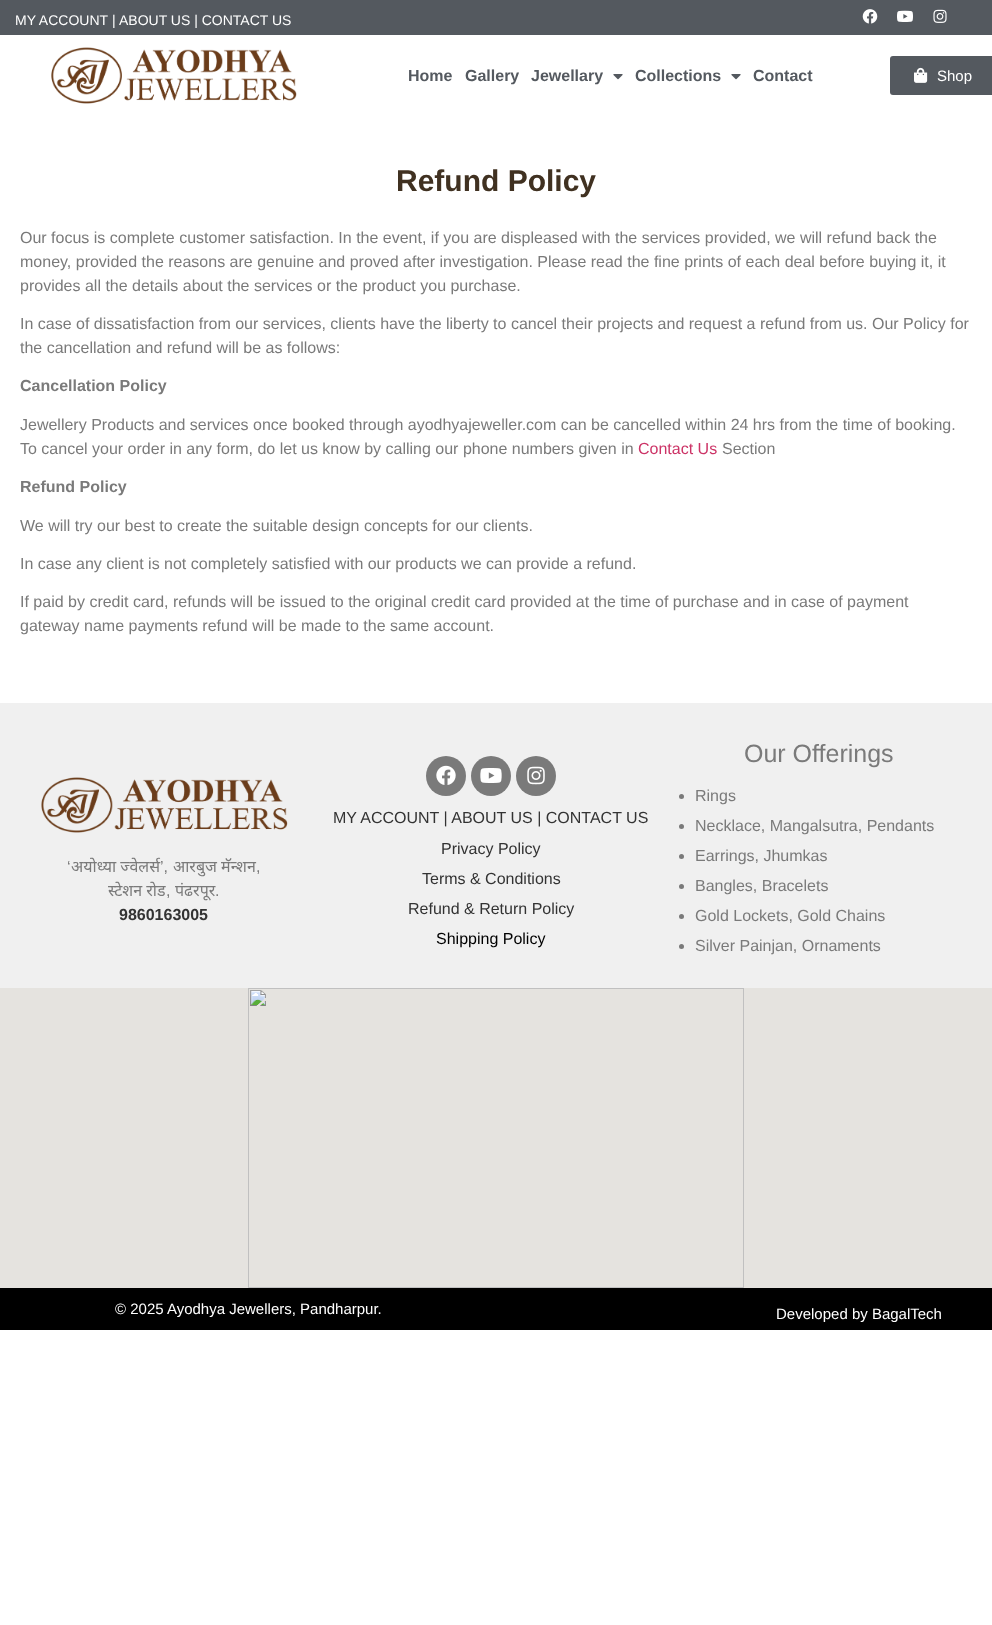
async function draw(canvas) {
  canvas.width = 992
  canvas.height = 1625
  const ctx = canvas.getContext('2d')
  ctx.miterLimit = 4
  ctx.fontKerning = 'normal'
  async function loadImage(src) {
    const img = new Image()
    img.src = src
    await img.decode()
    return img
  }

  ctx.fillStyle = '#fff'
  ctx.fillRect(0, 0, 992, 1625)
  ctx.fillStyle = '#54595f'
  ctx.fillRect(0, 0, 992, 35)
  ctx.font = '14px Liberation Sans'
  ctx.fillStyle = '#fff'
  ctx.fillText('MY ACCOUNT', 15, 25)
  ctx.fillText('|', 112, 25)
  ctx.fillText('ABOUT US | CONTACT US', 119, 25)
  ctx.drawImage(await loadImage('image0.png'), 862, 9, 16, 15)
  ctx.drawImage(await loadImage('image1.png'), 897, 10, 16, 12)
  ctx.drawImage(await loadImage('image2.png'), 933, 9, 14, 14)
  ctx.drawImage(await loadImage('image3.png'), 51, 47, 246, 57)
  ctx.font = 'bold 16px Liberation Sans'
  ctx.fillStyle = '#54595f'
  ctx.fillText('Home', 408, 81)
  ctx.fillText('Gallery', 465, 81)
  ctx.fillText('Jewellary', 531, 81)
  ctx.drawImage(await loadImage('image4.png'), 613, 74, 10, 6)
  ctx.fillText('Collections', 635, 81)
  ctx.drawImage(await loadImage('image4.png'), 731, 74, 10, 6)
  ctx.fillText('Contact', 753, 81)
  ctx.beginPath()
  ctx.roundRect(890, 56, 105, 39, 3)
  ctx.fill()
  ctx.drawImage(await loadImage('image5.png'), 914, 67, 14, 16)
  ctx.font = '15px Liberation Sans'
  ctx.fillStyle = '#fff'
  ctx.fillText('Shop', 937, 81)
  ctx.font = 'bold 30px Liberation Sans'
  ctx.fillStyle = '#403121'
  ctx.fillText('Refund Policy', 396, 191)
  ctx.font = '16px Liberation Sans'
  ctx.fillStyle = '#7a7a7a'
  ctx.fillText('Our focus is complete customer satisfaction. In the event, if you are displeased with the services provided, we will refund back the', 20, 243)
  ctx.fillText('money, provided the reasons are genuine and proved after investigation. Please read the fine prints of each deal before buying it, it', 20, 267)
  ctx.fillText('provides all the details about the services or the product you purchase.', 20, 291)
  ctx.fillText('In case of dissatisfaction from our services, clients have the liberty to cancel their projects and request a refund from us. Our Policy for', 20, 329)
  ctx.fillText('the cancellation and refund will be as follows:', 20, 353)
  ctx.font = 'bold 16px Liberation Sans'
  ctx.fillText('Cancellation Policy', 20, 391)
  ctx.font = '16px Liberation Sans'
  ctx.fillText('Jewellery Products and services once booked through ayodhyajeweller.com can be cancelled within 24 hrs from the time of booking.', 20, 430)
  ctx.fillText('To cancel your order in any form, do let us know by calling our phone numbers given in', 20, 454)
  ctx.fillStyle = '#c36'
  ctx.fillText('Contact Us', 638, 454)
  ctx.fillStyle = '#7a7a7a'
  ctx.fillText('Section', 722, 454)
  ctx.font = 'bold 16px Liberation Sans'
  ctx.fillText('Refund Policy', 20, 492)
  ctx.font = '16px Liberation Sans'
  ctx.fillText('We will try our best to create the suitable design concepts for our clients.', 20, 531)
  ctx.fillText('In case any client is not completely satisfied with our products we can provide a refund.', 20, 569)
  ctx.fillText('If paid by credit card, refunds will be issued to the original credit card provided at the time of purchase and in case of payment', 20, 607)
  ctx.fillText('gateway name payments refund will be made to the same account.', 20, 631)
  ctx.fillStyle = '#f0f0f0'
  ctx.fillRect(0, 703, 992, 285)
  ctx.drawImage(await loadImage('image6.png'), 41, 777, 247, 56)
  ctx.fillStyle = '#7a7a7a'
  ctx.fillText('‘', 67, 872)
  ctx.font = '16px Noto Sans'
  ctx.fillText('अयोध्या ज्वेलर्स', 71, 872)
  ctx.font = '16px Liberation Sans'
  ctx.fillText('’,', 160, 872)
  ctx.font = '16px Noto Sans'
  ctx.fillText('आरबुज मॅन्शन', 173, 872)
  ctx.font = '16px Liberation Sans'
  ctx.fillText(',', 256, 872)
  ctx.font = '16px Noto Sans'
  ctx.fillText('स्टेशन रोड', 108, 896)
  ctx.font = '16px Liberation Sans'
  ctx.fillText(',', 166, 896)
  ctx.font = '16px Noto Sans'
  ctx.fillText('पंढरपूर', 175, 896)
  ctx.font = '16px Liberation Sans'
  ctx.fillText('.', 215, 896)
  ctx.font = 'bold 16px Liberation Sans'
  ctx.fillStyle = '#333'
  ctx.fillText('9860163005', 119, 920)
  ctx.fillStyle = '#7a7a7a'
  ctx.beginPath()
  ctx.arc(446, 776, 20, 0, 2 * Math.PI)
  ctx.fill()
  ctx.drawImage(await loadImage('image7.png'), 436, 765, 20, 20)
  ctx.beginPath()
  ctx.arc(491, 776, 20, 0, 2 * Math.PI)
  ctx.fill()
  ctx.drawImage(await loadImage('image8.png'), 480, 768, 22, 15)
  ctx.beginPath()
  ctx.arc(536, 776, 20, 0, 2 * Math.PI)
  ctx.fill()
  ctx.drawImage(await loadImage('image9.png'), 527, 766, 18, 19)
  ctx.font = '16px Liberation Sans'
  ctx.fillStyle = '#333'
  ctx.fillText('MY ACCOUNT | ABOUT US | CONTACT US', 333, 823)
  ctx.fillText('Privacy Policy', 441, 854)
  ctx.fillText('Terms & Conditions', 422, 884)
  ctx.fillText('Refund & Return Policy', 408, 914)
  ctx.fillStyle = '#000'
  ctx.fillText('Shipping Policy', 436, 944)
  ctx.font = '25px Liberation Sans'
  ctx.fillStyle = '#7a7a7a'
  ctx.fillText('Our Offerings', 744, 762)
  ctx.beginPath()
  ctx.arc(681.5, 796.5, 2.5, 0, 2 * Math.PI)
  ctx.fill()
  ctx.font = '16px Liberation Sans'
  ctx.fillText('Rings', 695, 801)
  ctx.beginPath()
  ctx.arc(681.5, 826.5, 2.5, 0, 2 * Math.PI)
  ctx.fill()
  ctx.fillText('Necklace, Mangalsutra, Pendants', 695, 831)
  ctx.beginPath()
  ctx.arc(681.5, 856.5, 2.5, 0, 2 * Math.PI)
  ctx.fill()
  ctx.fillText('Earrings, Jhumkas', 695, 861)
  ctx.beginPath()
  ctx.arc(681.5, 886.5, 2.5, 0, 2 * Math.PI)
  ctx.fill()
  ctx.fillText('Bangles, Bracelets', 695, 891)
  ctx.beginPath()
  ctx.arc(681.5, 916.5, 2.5, 0, 2 * Math.PI)
  ctx.fill()
  ctx.fillText('Gold Lockets, Gold Chains', 695, 921)
  ctx.beginPath()
  ctx.arc(681.5, 946.5, 2.5, 0, 2 * Math.PI)
  ctx.fill()
  ctx.fillText('Silver Painjan, Ornaments', 695, 951)
  ctx.drawImage(await loadImage('image10.png'), 0, 988, 992, 300)
  ctx.fillStyle = '#000'
  ctx.fillRect(0, 1288, 992, 42)
  ctx.font = '15px Liberation Sans'
  ctx.fillStyle = '#fff'
  ctx.fillText('© 2025 Ayodhya Jewellers, Pandharpur.', 115, 1314)
  ctx.fillText('Developed by BagalTech', 776, 1319)
}

draw(document.querySelector('canvas'))
